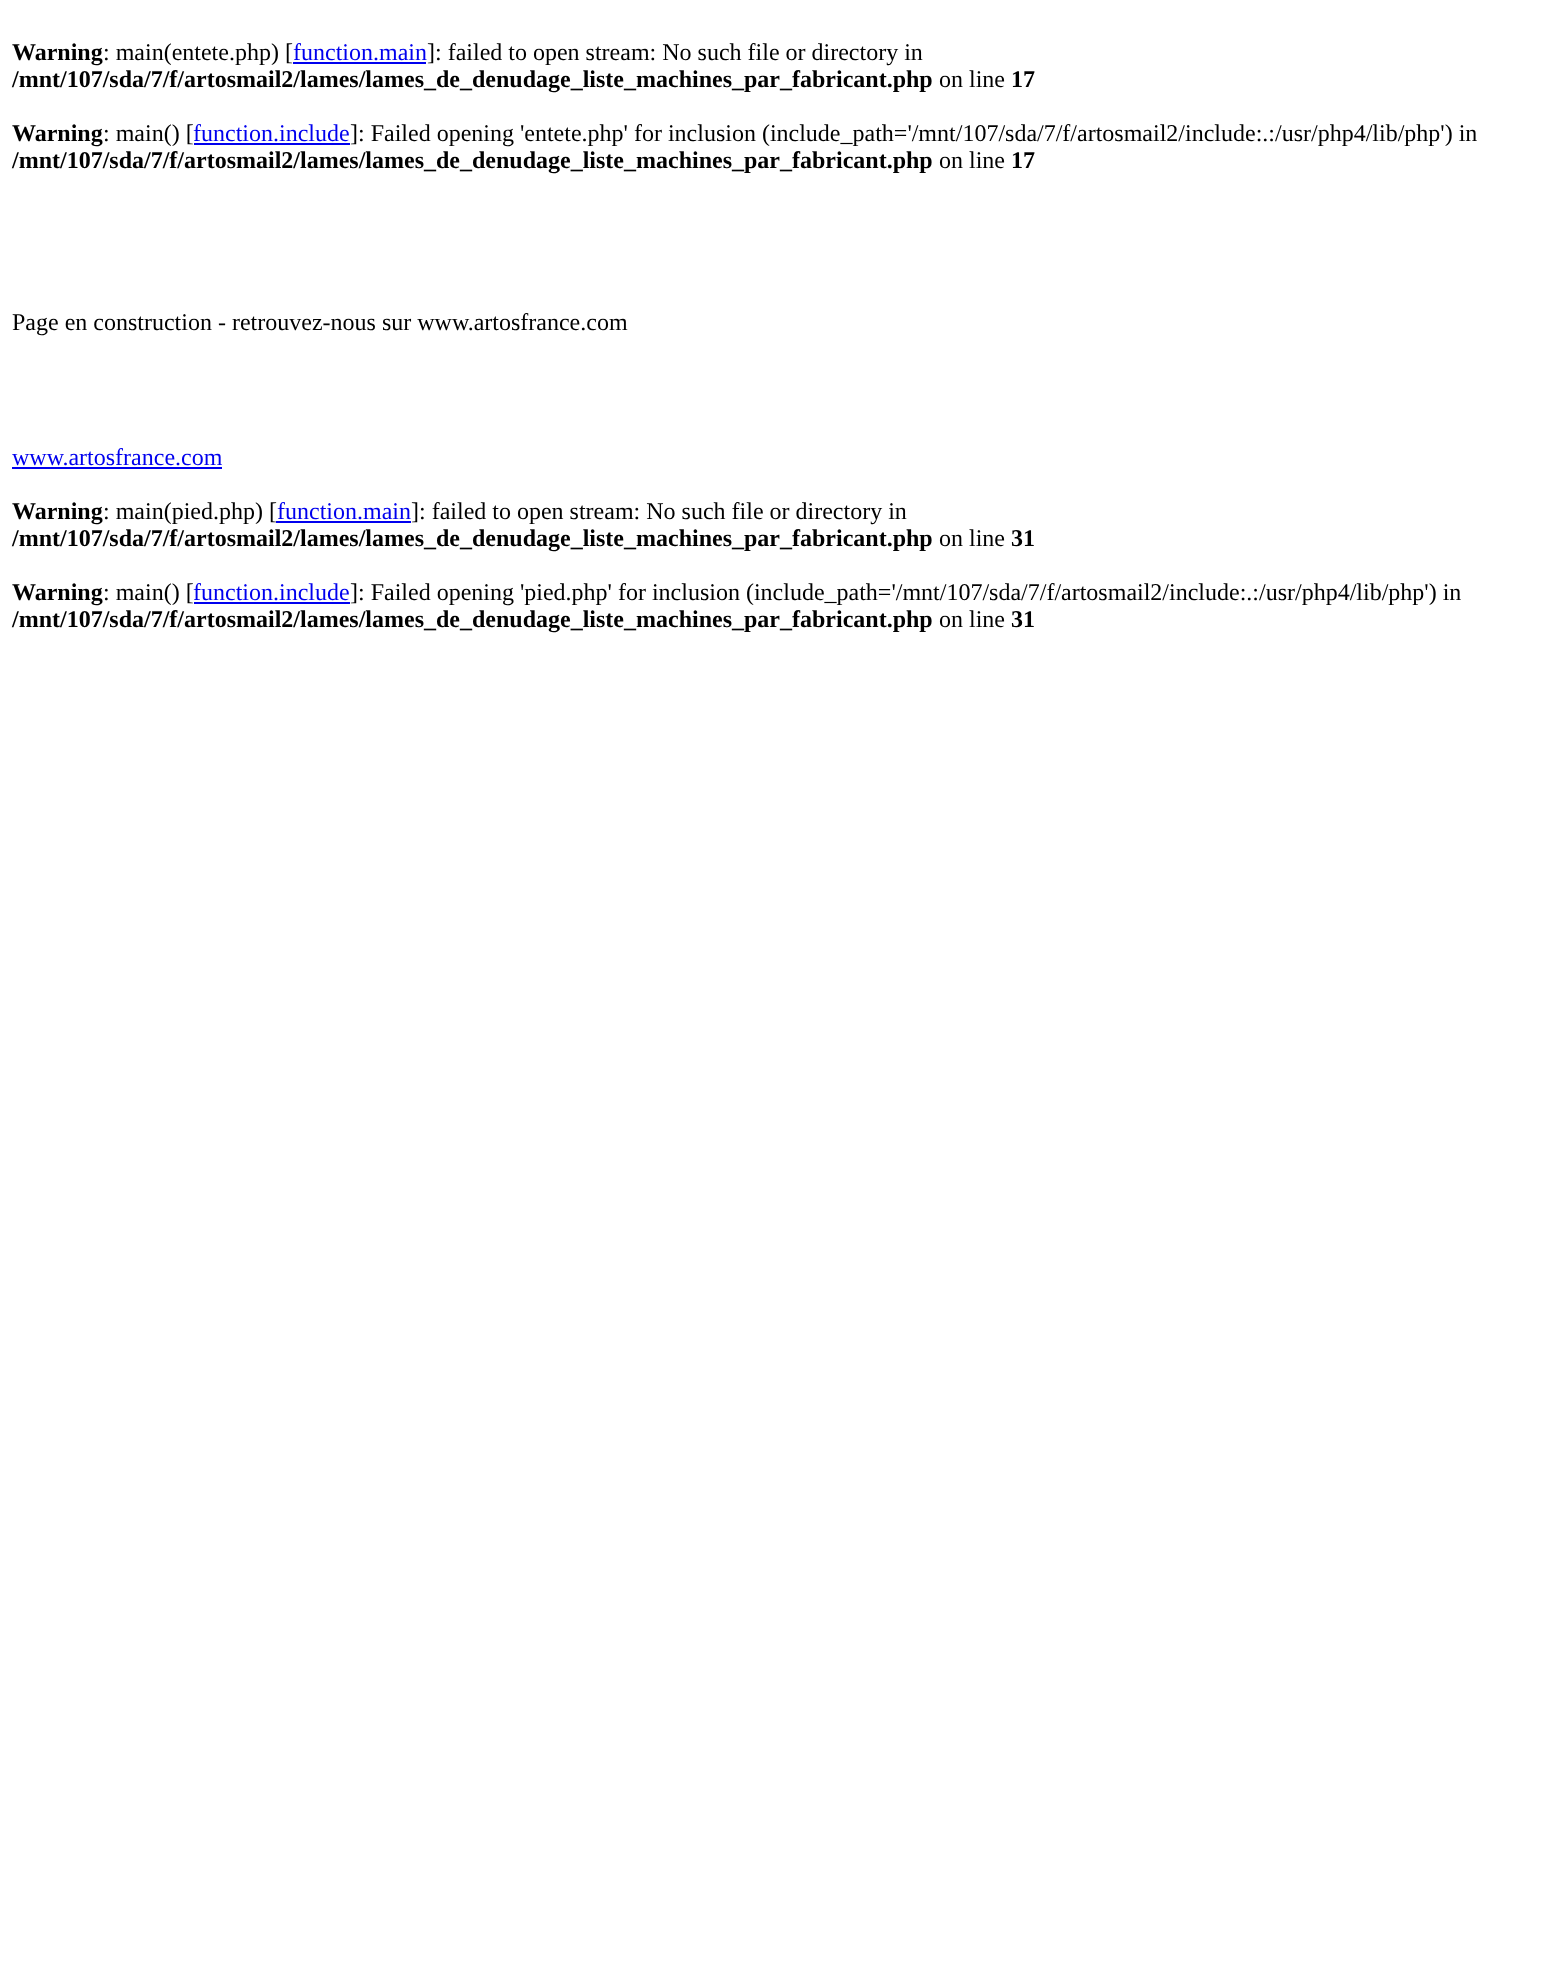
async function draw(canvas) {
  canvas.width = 1548
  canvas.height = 1967
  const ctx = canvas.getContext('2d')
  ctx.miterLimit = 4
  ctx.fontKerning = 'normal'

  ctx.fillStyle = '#fff'
  ctx.fillRect(0, 0, 1548, 1967)
  ctx.font = 'bold 24px Liberation Serif'
  ctx.fillStyle = '#000'
  ctx.fillText('Warning', 12, 60)
  ctx.font = '24px Liberation Serif'
  ctx.fillText(': main(entete.php) [', 103, 60)
  ctx.fillStyle = '#00e'
  ctx.fillText('function.main', 293, 60)
  ctx.fillRect(293, 62, 133, 2)
  ctx.fillStyle = '#000'
  ctx.fillText(']: failed to open stream: No such file or directory in', 427, 60)
  ctx.font = 'bold 24px Liberation Serif'
  ctx.fillText('/mnt/107/sda/7/f/artosmail2/lames/lames_de_denudage_liste_machines_par_fabricant.php', 12, 87)
  ctx.font = '24px Liberation Serif'
  ctx.fillText('on line', 939, 87)
  ctx.font = 'bold 24px Liberation Serif'
  ctx.fillText('17', 1011, 87)
  ctx.fillText('Warning', 12, 141)
  ctx.font = '24px Liberation Serif'
  ctx.fillText(': main() [', 103, 141)
  ctx.fillStyle = '#00e'
  ctx.fillText('function.include', 193, 141)
  ctx.fillRect(194, 143, 156, 2)
  ctx.fillStyle = '#000'
  ctx.fillText(']: Failed opening \'entete.php\' for inclusion (include_path=\'/mnt/107/sda/7/f/artosmail2/include:.:/usr/php4/lib/php\') in', 350, 141)
  ctx.font = 'bold 24px Liberation Serif'
  ctx.fillText('/mnt/107/sda/7/f/artosmail2/lames/lames_de_denudage_liste_machines_par_fabricant.php', 12, 168)
  ctx.font = '24px Liberation Serif'
  ctx.fillText('on line', 939, 168)
  ctx.font = 'bold 24px Liberation Serif'
  ctx.fillText('17', 1011, 168)
  ctx.font = '24px Liberation Serif'
  ctx.fillText('Page en construction - retrouvez-nous sur www.artosfrance.com', 12, 330)
  ctx.fillStyle = '#00e'
  ctx.fillText('www.artosfrance.com', 12, 465)
  ctx.fillRect(12, 467, 210, 2)
  ctx.font = 'bold 24px Liberation Serif'
  ctx.fillStyle = '#000'
  ctx.fillText('Warning', 12, 519)
  ctx.font = '24px Liberation Serif'
  ctx.fillText(': main(pied.php) [', 103, 519)
  ctx.fillStyle = '#00e'
  ctx.fillText('function.main', 277, 519)
  ctx.fillRect(276, 521, 135, 2)
  ctx.fillStyle = '#000'
  ctx.fillText(']: failed to open stream: No such file or directory in', 411, 519)
  ctx.font = 'bold 24px Liberation Serif'
  ctx.fillText('/mnt/107/sda/7/f/artosmail2/lames/lames_de_denudage_liste_machines_par_fabricant.php', 12, 546)
  ctx.font = '24px Liberation Serif'
  ctx.fillText('on line', 939, 546)
  ctx.font = 'bold 24px Liberation Serif'
  ctx.fillText('31', 1011, 546)
  ctx.fillText('Warning', 12, 600)
  ctx.font = '24px Liberation Serif'
  ctx.fillText(': main() [', 103, 600)
  ctx.fillStyle = '#00e'
  ctx.fillText('function.include', 193, 600)
  ctx.fillRect(194, 602, 156, 2)
  ctx.fillStyle = '#000'
  ctx.fillText(']: Failed opening \'pied.php\' for inclusion (include_path=\'/mnt/107/sda/7/f/artosmail2/include:.:/usr/php4/lib/php\') in', 350, 600)
  ctx.font = 'bold 24px Liberation Serif'
  ctx.fillText('/mnt/107/sda/7/f/artosmail2/lames/lames_de_denudage_liste_machines_par_fabricant.php', 12, 627)
  ctx.font = '24px Liberation Serif'
  ctx.fillText('on line', 939, 627)
  ctx.font = 'bold 24px Liberation Serif'
  ctx.fillText('31', 1011, 627)
}

draw(document.querySelector('canvas'))
